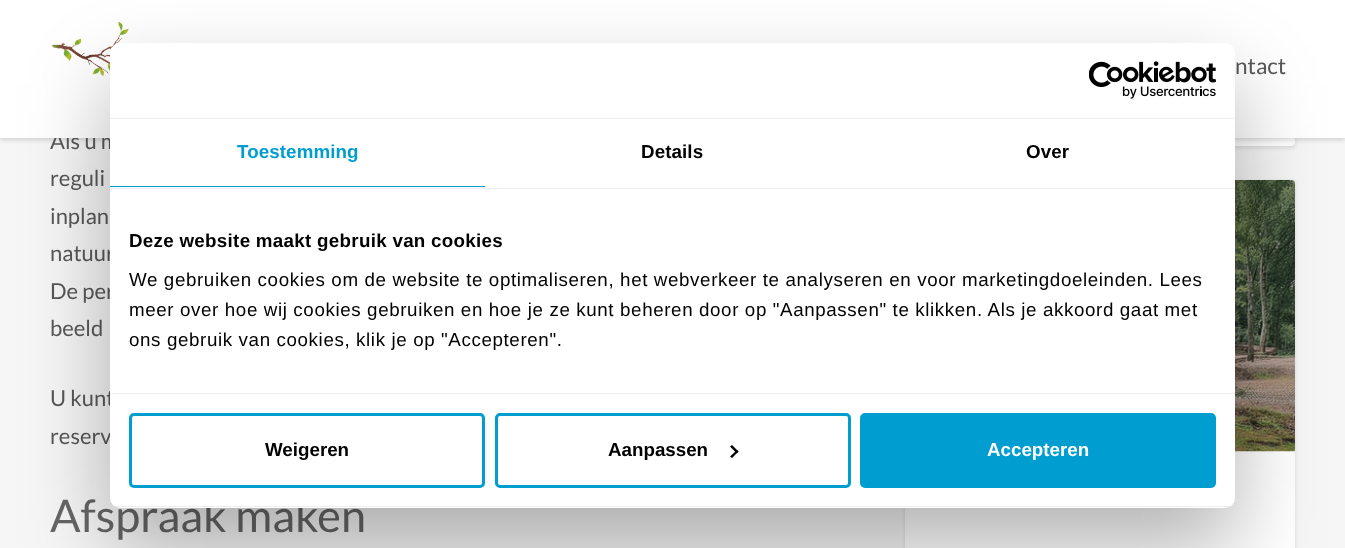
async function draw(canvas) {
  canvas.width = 1345
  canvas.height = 548
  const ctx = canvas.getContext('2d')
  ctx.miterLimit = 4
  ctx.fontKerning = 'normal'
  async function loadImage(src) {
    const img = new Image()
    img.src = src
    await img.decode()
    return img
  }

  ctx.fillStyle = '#f6f6f7'
  ctx.fillRect(0, 0, 1345, 548)
  ctx.fillStyle = '#0000001c'
  ctx.filter = 'blur(2px)'
  ctx.beginPath()
  ctx.roundRect(905, -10, 390, 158, 4)
  ctx.fill()
  ctx.filter = 'none'
  ctx.fillStyle = '#fff'
  ctx.beginPath()
  ctx.moveTo(905, -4)
  ctx.lineTo(1295, -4)
  ctx.lineTo(1295, 142)
  ctx.bezierCurveTo(1295, 144, 1293, 146, 1291, 146)
  ctx.lineTo(909, 146)
  ctx.bezierCurveTo(907, 146, 905, 144, 905, 142)
  ctx.closePath()
  ctx.fill()
  ctx.fillStyle = '#00000026'
  ctx.filter = 'blur(2.5px)'
  ctx.beginPath()
  ctx.rect(0, 3, 1345, 137)
  ctx.fill()
  ctx.filter = 'none'
  ctx.font = '22px Lato'
  ctx.fillStyle = '#58585a'
  ctx.fillText('Als u m', 50, 149)
  ctx.fillStyle = '#fff'
  ctx.fillRect(0, 0, 1345, 138)
  ctx.drawImage(await loadImage('image0.png'), 52, 21, 77, 55)
  ctx.font = '22.5px Lato'
  ctx.fillStyle = '#58585a'
  ctx.fillText('ntact', 1235, 74)
  ctx.font = '22px Lato'
  ctx.fillText('reguli', 50, 186)
  ctx.fillText('inplan', 50, 224)
  ctx.fillText('natuur', 50, 261)
  ctx.fillText('De per', 50, 299)
  ctx.fillText('beeld', 50, 336)
  ctx.fillText('U kunt', 50, 406)
  ctx.fillText('reserv', 50, 444)
  ctx.font = '45px Lato'
  ctx.fillStyle = '#666'
  ctx.fillText('Afspraak maken', 50, 532)
  ctx.fillStyle = '#0000001c'
  ctx.filter = 'blur(2px)'
  ctx.beginPath()
  ctx.roundRect(905, 181, 390, 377, 4)
  ctx.fill()
  ctx.filter = 'none'
  ctx.fillStyle = '#fff'
  ctx.fillRect(905, 451, 390, 97)
  ctx.drawImage(await loadImage('image1.png'), 1235, 180, 60, 272)
  ctx.fillStyle = '#0000004d'
  ctx.filter = 'blur(42.5px)'
  ctx.beginPath()
  ctx.roundRect(110, 83, 1125, 465, 10)
  ctx.fill()
  ctx.filter = 'none'
  ctx.fillStyle = '#fff'
  ctx.beginPath()
  ctx.roundRect(110, 43, 1125, 465, 10)
  ctx.fill()
  ctx.fillStyle = '#eee'
  ctx.fillRect(110, 118, 1125, 1)
  ctx.drawImage(await loadImage('image2.png'), 1089, 61, 127, 38)
  ctx.fillRect(110, 188, 1125, 1)
  ctx.fillStyle = '#009dd0'
  ctx.fillRect(110, 186, 375, 1)
  ctx.letterSpacing = '0.1px'
  ctx.font = 'bold 18.75px Liberation Sans'
  ctx.fillText('Toestemming', 237, 158)
  ctx.fillStyle = '#000'
  ctx.fillText('Details', 641, 158)
  ctx.fillText('Over', 1026, 158)
  ctx.fillStyle = '#eee'
  ctx.fillRect(110, 393, 1125, 1)
  ctx.letterSpacing = '0.3px'
  ctx.fillStyle = '#000'
  ctx.fillText('Deze website maakt gebruik van cookies', 129, 247)
  ctx.letterSpacing = '0.62px'
  ctx.font = '18.75px Liberation Sans'
  ctx.fillText('We gebruiken cookies om de website te optimaliseren, het webverkeer te analyseren en voor marketingdoeleinden. Lees', 129, 286)
  ctx.fillText('meer over hoe wij cookies gebruiken en hoe je ze kunt beheren door op "Aanpassen" te klikken. Als je akkoord gaat met', 129, 316)
  ctx.fillText('ons gebruik van cookies, klik je op "Accepteren".', 129, 346)
  ctx.save()
  ctx.beginPath()
  ctx.roundRect(110, 43, 1125, 465, 10)
  ctx.clip()
  ctx.fillStyle = '#eee'
  ctx.fillRect(110, 506, 1125, 1)
  ctx.restore()
  ctx.beginPath()
  ctx.roundRect(130.5, 414.5, 353, 72, 3.5)
  ctx.strokeStyle = '#009dd0'
  ctx.lineWidth = 3
  ctx.stroke()
  ctx.letterSpacing = '0px'
  ctx.font = 'bold 18.75px Liberation Sans'
  ctx.fillText('Weigeren', 265, 456)
  ctx.beginPath()
  ctx.roundRect(496.5, 414.5, 353, 72, 3.5)
  ctx.stroke()
  ctx.fillText('Aanpassen', 608, 456)
  ctx.beginPath()
  ctx.moveTo(732, 445)
  ctx.lineTo(738.5, 451.5)
  ctx.lineTo(737, 453.5)
  ctx.lineTo(730, 446.5)
  ctx.closePath()
  ctx.fill()
  ctx.beginPath()
  ctx.moveTo(737, 450)
  ctx.lineTo(738.5, 451.5)
  ctx.lineTo(732, 458)
  ctx.lineTo(730, 456.5)
  ctx.closePath()
  ctx.fill()
  ctx.fillStyle = '#009dd0'
  ctx.beginPath()
  ctx.roundRect(861.5, 414.5, 353, 72, 3.5)
  ctx.fill()
  ctx.stroke()
  ctx.fillStyle = '#fff'
  ctx.fillText('Accepteren', 987, 456)
}

draw(document.querySelector('canvas'))
